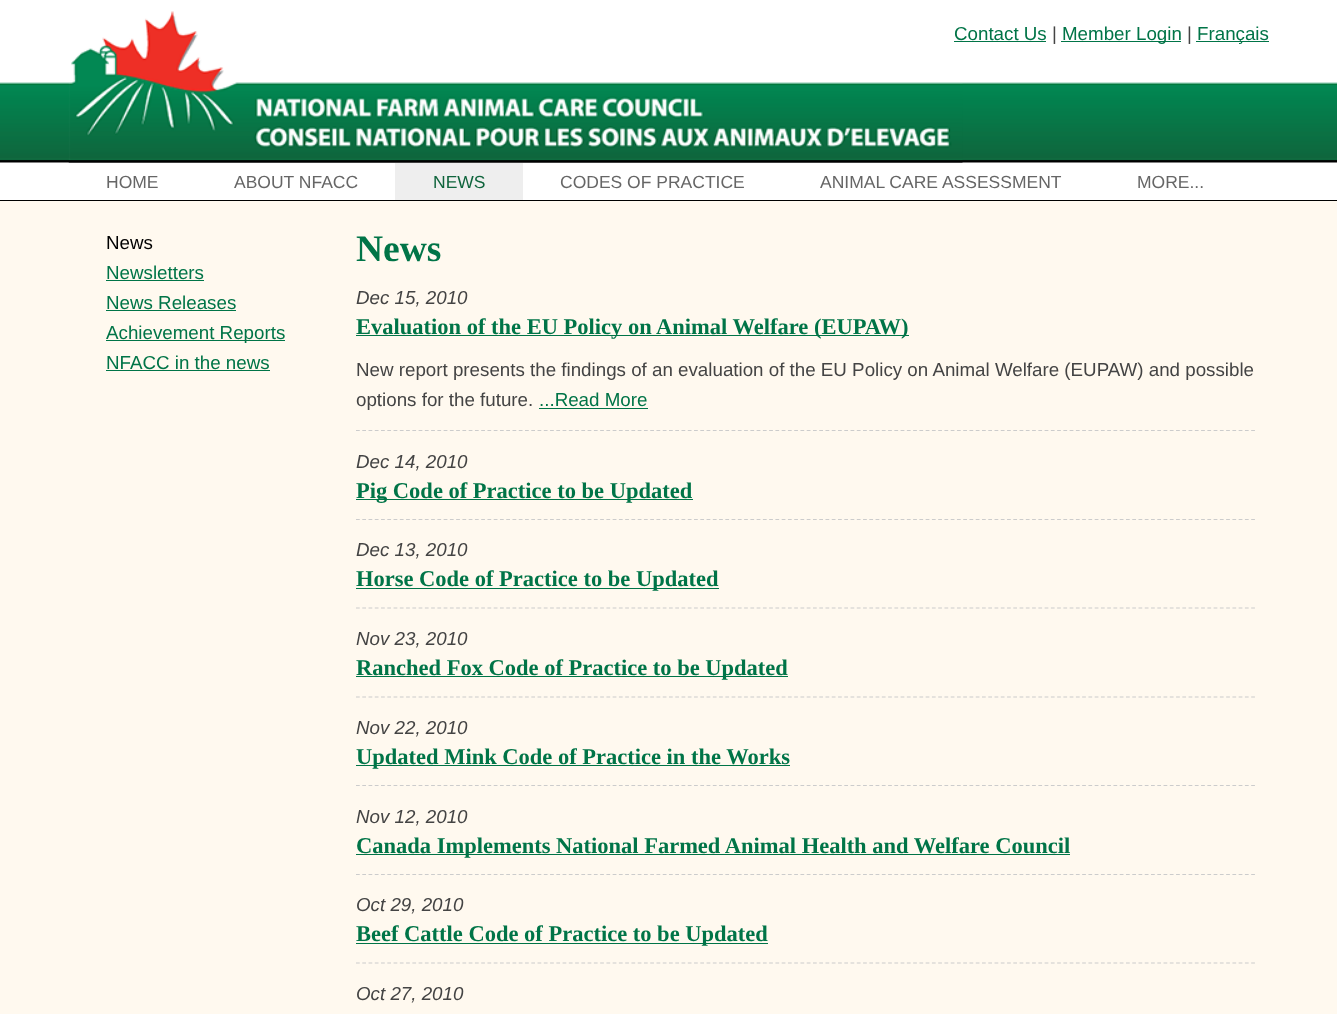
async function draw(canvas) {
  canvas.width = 1337
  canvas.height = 1014
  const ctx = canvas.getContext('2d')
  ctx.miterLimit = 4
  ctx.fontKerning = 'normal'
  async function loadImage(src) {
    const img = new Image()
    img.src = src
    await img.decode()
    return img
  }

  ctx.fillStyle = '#fff9ef'
  ctx.fillRect(0, 0, 1337, 1014)
  ctx.fillStyle = '#fff'
  ctx.fillRect(0, 0, 1337, 200)
  ctx.drawImage(await loadImage('image0.png'), 0, 82, 1337, 81)
  ctx.drawImage(await loadImage('image1.png'), 68, 11, 895, 152)
  ctx.font = '18.75px Liberation Sans'
  ctx.fillStyle = '#007447'
  ctx.fillText('Contact Us', 954, 40)
  ctx.fillRect(954, 41, 92, 1)
  ctx.fillStyle = '#444'
  ctx.fillText('|', 1052, 40)
  ctx.fillStyle = '#007447'
  ctx.fillRect(1061, 41, 120, 1)
  ctx.fillText('Member Login', 1062, 40)
  ctx.fillStyle = '#444'
  ctx.fillText('|', 1187, 40)
  ctx.fillStyle = '#007447'
  ctx.fillRect(1196, 41, 73, 1)
  ctx.fillText('Français', 1197, 40)
  ctx.fillStyle = '#000'
  ctx.fillRect(0, 200, 1337, 1)
  ctx.font = '17.5px Liberation Sans'
  ctx.fillStyle = '#666'
  ctx.fillText('HOME', 106, 188)
  ctx.fillText('ABOUT NFACC', 234, 188)
  ctx.fillStyle = '#eee'
  ctx.fillRect(395, 163, 128, 37)
  ctx.fillStyle = '#0f643c'
  ctx.fillText('NEWS', 433, 188)
  ctx.fillStyle = '#666'
  ctx.fillText('CODES OF PRACTICE', 560, 188)
  ctx.fillText('ANIMAL CARE ASSESSMENT', 820, 188)
  ctx.fillText('MORE...', 1137, 188)
  ctx.font = '18.75px Liberation Sans'
  ctx.fillStyle = '#000'
  ctx.fillText('News', 106, 249)
  ctx.fillStyle = '#007447'
  ctx.fillText('Newsletters', 106, 279)
  ctx.fillRect(106, 280, 98, 1)
  ctx.fillText('News Releases', 106, 309)
  ctx.fillRect(106, 310, 130, 1)
  ctx.fillRect(106, 340, 179, 1)
  ctx.fillText('Achievement Reports', 106, 339)
  ctx.fillText('NFACC in the news', 106, 369)
  ctx.fillRect(106, 370, 164, 1)
  ctx.font = 'bold 37.5px Liberation Serif'
  ctx.fillText('News', 356, 261)
  ctx.beginPath()
  ctx.moveTo(356, 430.5)
  ctx.lineTo(1256, 430.5)
  ctx.strokeStyle = '#ccc'
  ctx.lineWidth = 1.2
  ctx.setLineDash([3.75, 2.51])
  ctx.stroke()
  ctx.font = 'italic 18.75px Liberation Sans'
  ctx.fillStyle = '#444'
  ctx.fillText('Dec 15, 2010', 356, 304)
  ctx.fillStyle = '#007447'
  ctx.fillRect(356, 335, 553, 1)
  ctx.font = 'bold 22.5px Liberation Serif'
  ctx.fillText('Evaluation of the EU Policy on Animal Welfare (EUPAW)', 356, 334)
  ctx.font = '18.75px Liberation Sans'
  ctx.fillStyle = '#444'
  ctx.fillText('New report presents the findings of an evaluation of the EU Policy on Animal Welfare (EUPAW) and possible', 356, 376)
  ctx.fillText('options for the future.', 356, 406)
  ctx.fillStyle = '#007447'
  ctx.fillText('...Read More', 539, 406)
  ctx.fillRect(539, 408, 109, 1)
  ctx.beginPath()
  ctx.moveTo(356, 519.5)
  ctx.lineTo(1256, 519.5)
  ctx.stroke()
  ctx.font = 'italic 18.75px Liberation Sans'
  ctx.fillStyle = '#444'
  ctx.fillText('Dec 14, 2010', 356, 468)
  ctx.fillStyle = '#007447'
  ctx.fillRect(356, 499, 337, 1)
  ctx.font = 'bold 22.5px Liberation Serif'
  ctx.fillText('Pig Code of Practice to be Updated', 356, 498)
  ctx.beginPath()
  ctx.moveTo(356, 608)
  ctx.lineTo(1256, 608)
  ctx.stroke()
  ctx.font = 'italic 18.75px Liberation Sans'
  ctx.fillStyle = '#444'
  ctx.fillText('Dec 13, 2010', 356, 556)
  ctx.fillStyle = '#007447'
  ctx.fillRect(356, 588, 363, 1)
  ctx.font = 'bold 22.5px Liberation Serif'
  ctx.fillText('Horse Code of Practice to be Updated', 356, 586)
  ctx.beginPath()
  ctx.moveTo(356, 697)
  ctx.lineTo(1256, 697)
  ctx.stroke()
  ctx.font = 'italic 18.75px Liberation Sans'
  ctx.fillStyle = '#444'
  ctx.fillText('Nov 23, 2010', 356, 645)
  ctx.fillStyle = '#007447'
  ctx.fillRect(356, 676, 432, 1)
  ctx.font = 'bold 22.5px Liberation Serif'
  ctx.fillText('Ranched Fox Code of Practice to be Updated', 356, 675)
  ctx.beginPath()
  ctx.moveTo(356, 785.5)
  ctx.lineTo(1256, 785.5)
  ctx.stroke()
  ctx.font = 'italic 18.75px Liberation Sans'
  ctx.fillStyle = '#444'
  ctx.fillText('Nov 22, 2010', 356, 734)
  ctx.fillStyle = '#007447'
  ctx.fillRect(356, 765, 434, 1)
  ctx.font = 'bold 22.5px Liberation Serif'
  ctx.fillText('Updated Mink Code of Practice in the Works', 356, 764)
  ctx.beginPath()
  ctx.moveTo(356, 874.5)
  ctx.lineTo(1256, 874.5)
  ctx.stroke()
  ctx.font = 'italic 18.75px Liberation Sans'
  ctx.fillStyle = '#444'
  ctx.fillText('Nov 12, 2010', 356, 823)
  ctx.fillStyle = '#007447'
  ctx.fillRect(356, 854, 714, 1)
  ctx.font = 'bold 22.5px Liberation Serif'
  ctx.fillText('Canada Implements National Farmed Animal Health and Welfare Council', 356, 853)
  ctx.beginPath()
  ctx.moveTo(356, 963)
  ctx.lineTo(1256, 963)
  ctx.stroke()
  ctx.font = 'italic 18.75px Liberation Sans'
  ctx.fillStyle = '#444'
  ctx.fillText('Oct 29, 2010', 356, 911)
  ctx.fillStyle = '#007447'
  ctx.fillRect(356, 943, 412, 1)
  ctx.font = 'bold 22.5px Liberation Serif'
  ctx.fillText('Beef Cattle Code of Practice to be Updated', 356, 941)
  ctx.font = 'italic 18.75px Liberation Sans'
  ctx.fillStyle = '#444'
  ctx.fillText('Oct 27, 2010', 356, 1000)
}

draw(document.querySelector('canvas'))
